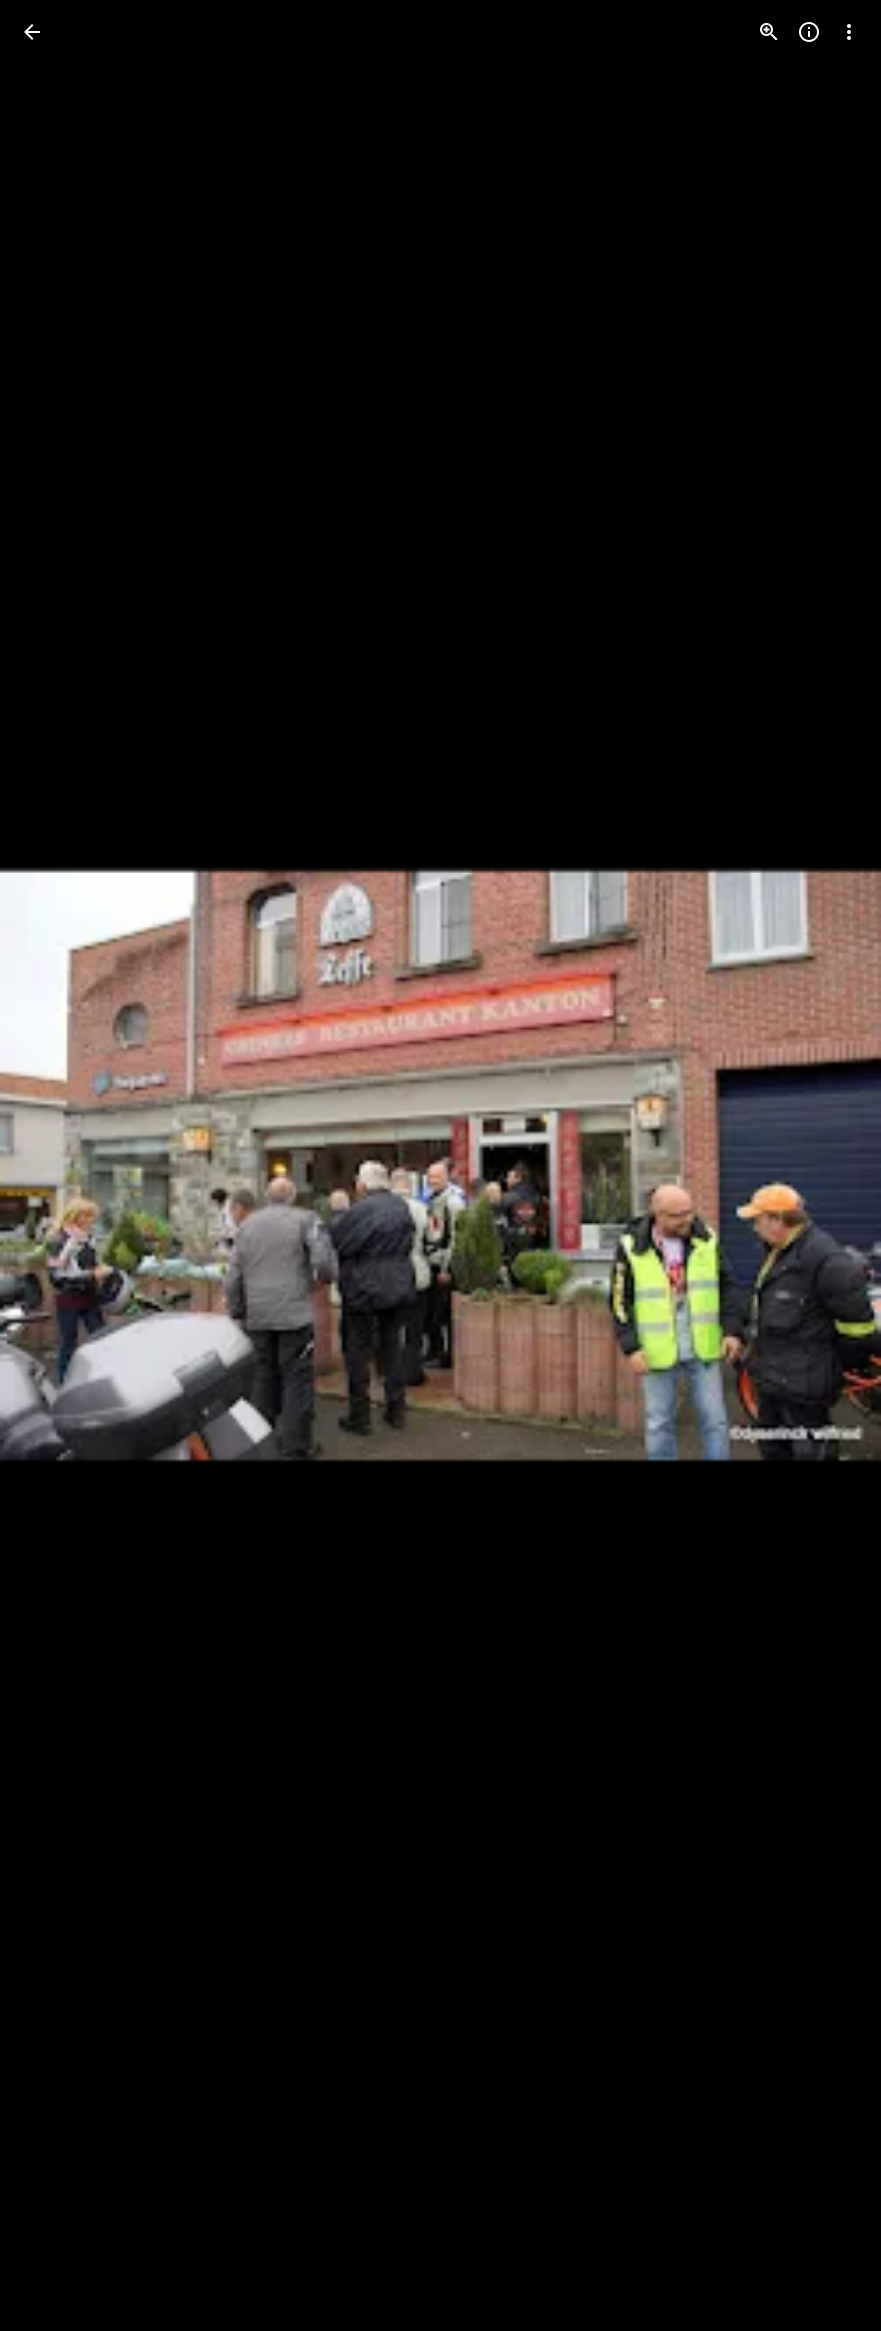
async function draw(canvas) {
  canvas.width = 881
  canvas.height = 2331
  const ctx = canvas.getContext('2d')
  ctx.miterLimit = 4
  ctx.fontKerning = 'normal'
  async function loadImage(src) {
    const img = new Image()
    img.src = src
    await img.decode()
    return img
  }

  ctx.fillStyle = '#000'
  ctx.fillRect(0, 0, 881, 2331)
  ctx.drawImage(await loadImage('image0.png'), 24, 24, 16, 16)
  ctx.drawImage(await loadImage('image1.png'), 760, 23, 18, 18)
  ctx.drawImage(await loadImage('image2.png'), 799, 22, 20, 20)
  ctx.drawImage(await loadImage('image3.png'), 847, 24, 4, 16)
  ctx.drawImage(await loadImage('image4.png'), 0, 867, 881, 595)
}

draw(document.querySelector('canvas'))
